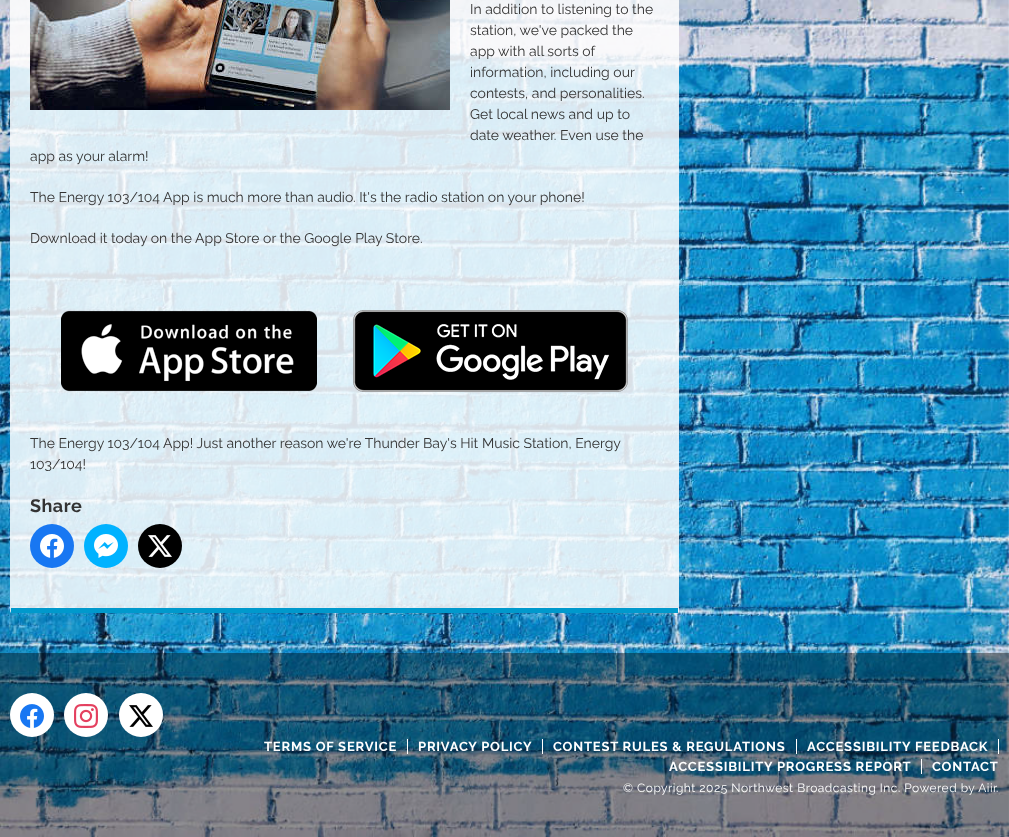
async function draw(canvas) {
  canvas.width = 1009
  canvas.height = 837
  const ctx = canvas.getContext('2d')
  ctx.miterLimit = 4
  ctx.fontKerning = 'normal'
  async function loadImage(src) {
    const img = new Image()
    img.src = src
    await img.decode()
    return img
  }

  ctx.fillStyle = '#fff'
  ctx.fillRect(0, 0, 1009, 837)
  ctx.drawImage(await loadImage('image0.png'), 0, 0, 1009, 837)
  ctx.fillStyle = '#ffffffd9'
  ctx.beginPath()
  ctx.roundRect(10, -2, 669, 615, 2)
  ctx.fill()
  ctx.fillStyle = '#09c'
  ctx.fillRect(11, 608, 667, 5)
  ctx.drawImage(await loadImage('image1.png'), 30, 0, 420, 110)
  ctx.font = '14px Raleway'
  ctx.fillStyle = '#333'
  ctx.fillText('In addition to listening to the', 470, 14)
  ctx.fillText('station, we\'ve packed the', 470, 35)
  ctx.fillText('app with all sorts of', 470, 56)
  ctx.fillText('information, including our', 470, 77)
  ctx.fillText('contests, and personalities.', 470, 98)
  ctx.fillText('Get local news and up to', 470, 119)
  ctx.fillText('date weather. Even use the', 470, 140)
  ctx.fillText('app as your alarm!', 30, 161)
  ctx.fillText('The Energy 103/104 App is much more than audio. It\'s the radio station on your phone!', 30, 202)
  ctx.fillText('Download it today on the App Store or the Google Play Store.', 30, 243)
  ctx.drawImage(await loadImage('image2.png'), 61, 310, 256, 82)
  ctx.drawImage(await loadImage('image3.png'), 353, 310, 275, 82)
  ctx.fillText('The Energy 103/104 App! Just another reason we\'re Thunder Bay\'s Hit Music Station, Energy', 30, 448)
  ctx.fillText('103/104!', 30, 469)
  ctx.letterSpacing = '0.5px'
  ctx.font = 'bold 18px Raleway'
  ctx.fillText('Share', 30, 512)
  ctx.fillStyle = '#1877f2'
  ctx.beginPath()
  ctx.arc(52, 546, 22, 0, 2 * Math.PI)
  ctx.fill()
  ctx.drawImage(await loadImage('image4.png'), 40, 534, 24, 24)
  ctx.fillStyle = '#00b2ff'
  ctx.beginPath()
  ctx.arc(106, 546, 22, 0, 2 * Math.PI)
  ctx.fill()
  ctx.drawImage(await loadImage('image5.png'), 94, 534, 24, 24)
  ctx.fillStyle = '#000'
  ctx.beginPath()
  ctx.arc(160, 546, 22, 0, 2 * Math.PI)
  ctx.fill()
  ctx.drawImage(await loadImage('image6.png'), 148, 535, 24, 22)
  ctx.fillStyle = '#00000066'
  ctx.fillRect(0, 653, 1009, 184)
  ctx.fillStyle = '#fff'
  ctx.beginPath()
  ctx.arc(32, 715, 22, 0, 2 * Math.PI)
  ctx.fill()
  ctx.drawImage(await loadImage('image7.png'), 20, 704, 24, 24)
  ctx.beginPath()
  ctx.arc(86, 715, 22, 0, 2 * Math.PI)
  ctx.fill()
  ctx.drawImage(await loadImage('image8.png'), 74, 704, 24, 24)
  ctx.beginPath()
  ctx.arc(141, 715, 22, 0, 2 * Math.PI)
  ctx.fill()
  ctx.drawImage(await loadImage('image9.png'), 129, 705, 24, 22)
  ctx.letterSpacing = '0.8px'
  ctx.font = 'bold 13px Raleway'
  ctx.fillText('TERMS OF SERVICE', 264, 751)
  ctx.fillRect(407, 739, 1, 15)
  ctx.fillText('PRIVACY POLICY', 418, 751)
  ctx.fillRect(542, 739, 1, 15)
  ctx.fillText('CONTEST RULES & REGULATIONS', 553, 751)
  ctx.fillRect(796, 739, 1, 15)
  ctx.fillText('ACCESSIBILITY FEEDBACK', 807, 751)
  ctx.fillRect(998, 739, 1, 15)
  ctx.fillText('ACCESSIBILITY PROGRESS REPORT', 669, 771)
  ctx.fillRect(921, 759, 1, 15)
  ctx.fillText('CONTACT', 932, 771)
  ctx.letterSpacing = '0.5px'
  ctx.font = '12px Raleway'
  ctx.fillText('© Copyright 2025 Northwest Broadcasting Inc. Powered by Aiir', 623, 792)
  ctx.fillText('.', 996, 792)
}

draw(document.querySelector('canvas'))
